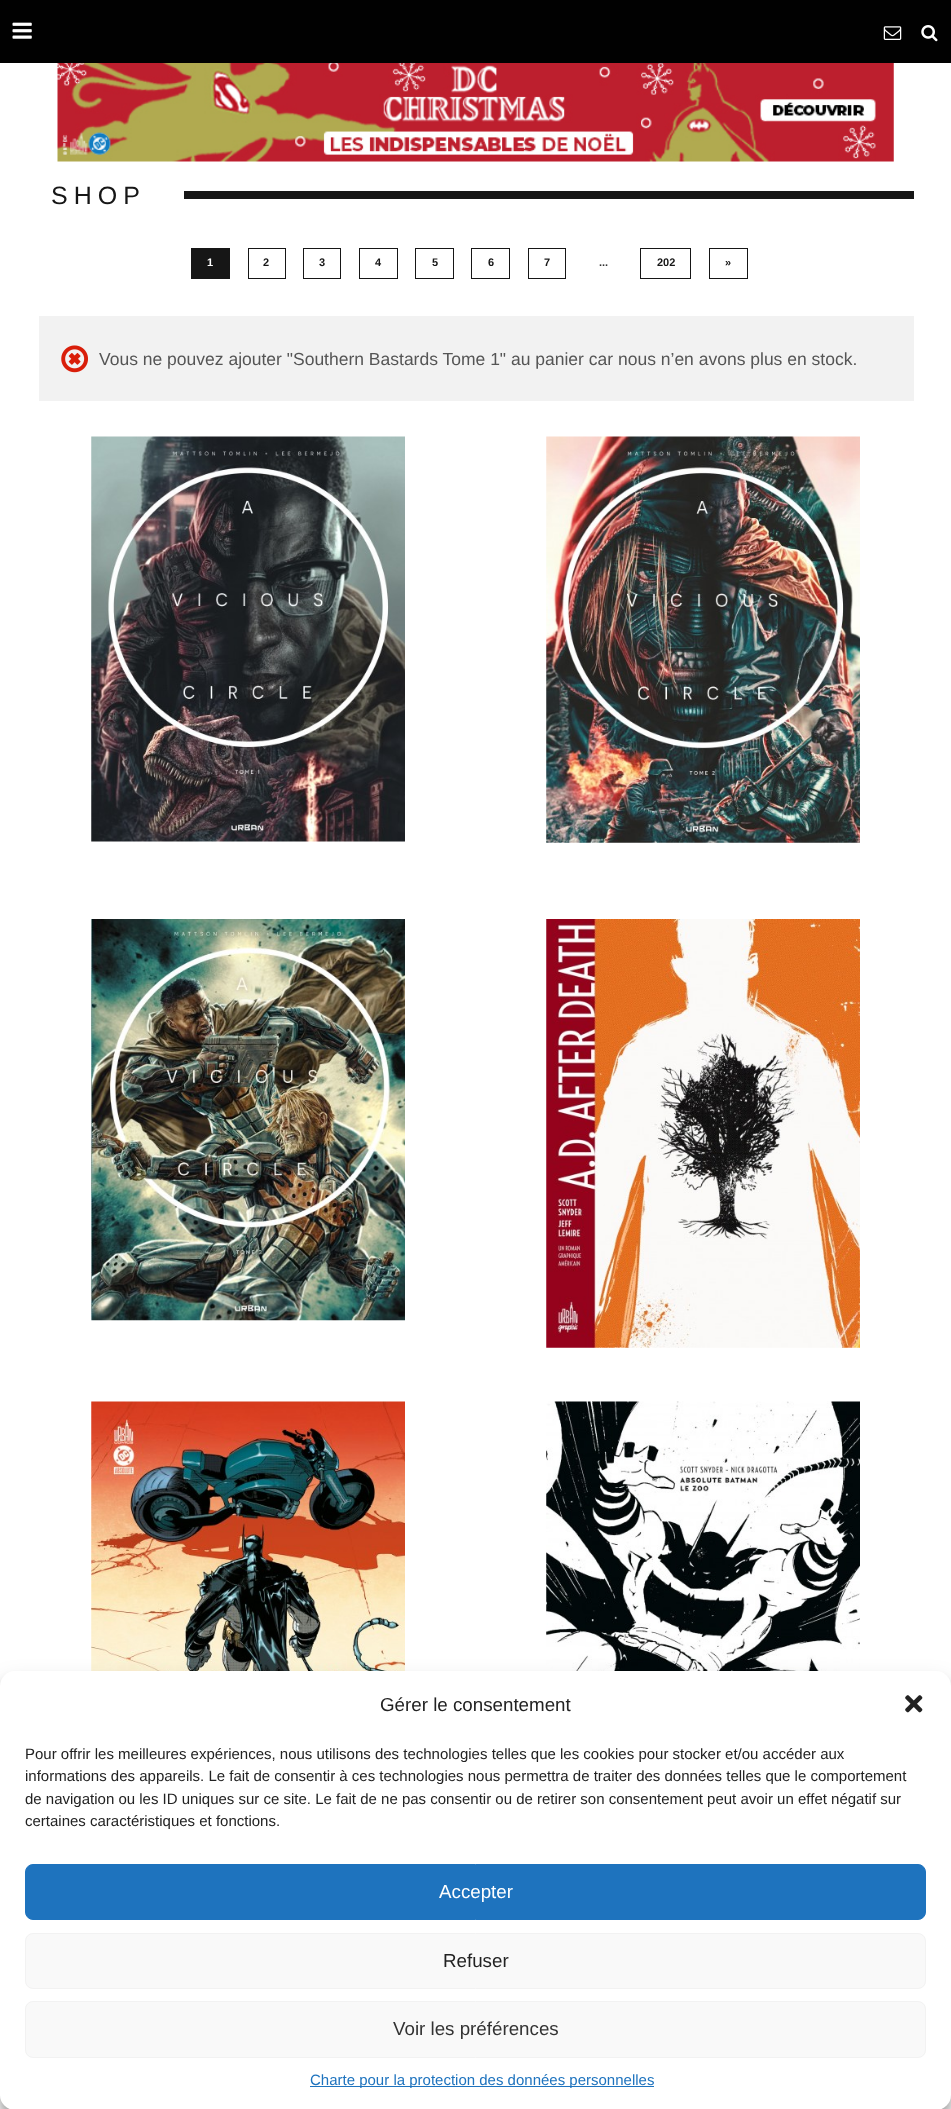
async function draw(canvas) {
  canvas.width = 951
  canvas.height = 2109
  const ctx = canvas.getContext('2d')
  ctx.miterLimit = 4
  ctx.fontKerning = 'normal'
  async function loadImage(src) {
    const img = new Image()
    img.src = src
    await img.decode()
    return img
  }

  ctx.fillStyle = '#fff'
  ctx.fillRect(0, 0, 951, 2109)
  ctx.fillStyle = '#010101'
  ctx.fillRect(0, 0, 951, 63)
  ctx.drawImage(await loadImage('image0.png'), 12, 22, 20, 17)
  ctx.drawImage(await loadImage('image1.png'), 883, 26, 19, 14)
  ctx.drawImage(await loadImage('image2.png'), 921, 25, 17, 17)
  ctx.drawImage(await loadImage('image3.png'), 57, 63, 837, 99)
  ctx.letterSpacing = '6px'
  ctx.font = '25px Liberation Sans'
  ctx.fillStyle = '#161616'
  ctx.fillText('SHOP', 51, 204)
  ctx.fillRect(184, 191, 730, 8)
  ctx.fillRect(191, 248, 39, 31)
  ctx.letterSpacing = '0px'
  ctx.font = 'bold 11px Liberation Sans'
  ctx.fillStyle = '#fff'
  ctx.fillText('1', 207, 266)
  ctx.strokeStyle = '#161616'
  ctx.strokeRect(248.5, 248.5, 37, 30)
  ctx.fillStyle = '#161616'
  ctx.fillText('2', 263, 266)
  ctx.strokeRect(303.5, 248.5, 37, 30)
  ctx.fillText('3', 319, 266)
  ctx.strokeRect(359.5, 248.5, 38, 30)
  ctx.fillText('4', 375, 266)
  ctx.strokeRect(415.5, 248.5, 38, 30)
  ctx.fillText('5', 432, 266)
  ctx.strokeRect(471.5, 248.5, 38, 30)
  ctx.fillText('6', 488, 266)
  ctx.strokeRect(528.5, 248.5, 37, 30)
  ctx.fillText('7', 544, 266)
  ctx.fillStyle = '#333'
  ctx.fillText('...', 599, 266)
  ctx.strokeRect(640.5, 248.5, 50, 30)
  ctx.fillStyle = '#161616'
  ctx.fillText('202', 657, 266)
  ctx.strokeRect(709.5, 248.5, 38, 30)
  ctx.fillText('»', 725, 266)
  ctx.fillStyle = '#f2f2f2'
  ctx.fillRect(39, 316, 875, 85)
  ctx.drawImage(await loadImage('image4.png'), 61, 345, 27, 28)
  ctx.font = '17.5px Liberation Sans'
  ctx.fillStyle = '#555'
  ctx.fillText('Vous ne pouvez ajouter "Southern Bastards Tome 1" au panier car nous n’en avons plus en stock.', 99, 365)
  ctx.drawImage(await loadImage('image5.png'), 91, 436, 314, 406)
  ctx.drawImage(await loadImage('image6.png'), 546, 436, 314, 407)
  ctx.drawImage(await loadImage('image7.png'), 91, 919, 314, 402)
  ctx.drawImage(await loadImage('image8.png'), 546, 919, 314, 429)
  ctx.drawImage(await loadImage('image9.png'), 91, 1401, 314, 270)
  ctx.drawImage(await loadImage('image10.png'), 546, 1401, 314, 270)
  ctx.fillStyle = '#0000003b'
  ctx.filter = 'blur(4px)'
  ctx.beginPath()
  ctx.roundRect(0, 1679, 951, 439, 15)
  ctx.fill()
  ctx.filter = 'none'
  ctx.fillStyle = '#00000030'
  ctx.filter = 'blur(12.5px)'
  ctx.beginPath()
  ctx.roundRect(0, 1684, 951, 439, 15)
  ctx.fill()
  ctx.filter = 'none'
  ctx.fillStyle = '#fff'
  ctx.beginPath()
  ctx.roundRect(0, 1671, 951, 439, 15)
  ctx.fill()
  ctx.font = '18.75px Liberation Sans'
  ctx.fillStyle = '#222'
  ctx.fillText('Gérer le consentement', 380, 1711)
  ctx.drawImage(await loadImage('image11.png'), 905, 1695, 18, 18)
  ctx.font = '15px Liberation Sans'
  ctx.fillText('Pour offrir les meilleures expériences, nous utilisons des technologies telles que les cookies pour stocker et/ou accéder aux', 25, 1759)
  ctx.fillText('informations des appareils. Le fait de consentir à ces technologies nous permettra de traiter des données telles que le comportement', 25, 1781)
  ctx.fillText('de navigation ou les ID uniques sur ce site. Le fait de ne pas consentir ou de retirer son consentement peut avoir un effet négatif sur', 25, 1804)
  ctx.fillText('certaines caractéristiques et fonctions.', 25, 1826)
  ctx.fillStyle = '#1e73be'
  ctx.beginPath()
  ctx.roundRect(25.5, 1864.5, 900, 55, 7.5)
  ctx.fill()
  ctx.strokeStyle = '#1e73be'
  ctx.stroke()
  ctx.font = '18.75px Liberation Sans'
  ctx.fillStyle = '#fff'
  ctx.fillText('Accepter', 439, 1898)
  ctx.fillStyle = '#f9f9f9'
  ctx.beginPath()
  ctx.roundRect(25.5, 1933.5, 900, 55, 7.5)
  ctx.fill()
  ctx.strokeStyle = '#f2f2f2'
  ctx.stroke()
  ctx.fillStyle = '#222'
  ctx.fillText('Refuser', 443, 1967)
  ctx.fillStyle = '#f9f9f9'
  ctx.beginPath()
  ctx.roundRect(25.5, 2001.5, 900, 56, 7.5)
  ctx.fill()
  ctx.stroke()
  ctx.fillStyle = '#333'
  ctx.fillText('Voir les préférences', 393, 2035)
  ctx.fillStyle = '#1e73be'
  ctx.fillRect(310, 2086, 344, 1)
  ctx.font = '15px Liberation Sans'
  ctx.fillText('Charte pour la protection des données personnelles', 310, 2085)
}

draw(document.querySelector('canvas'))
